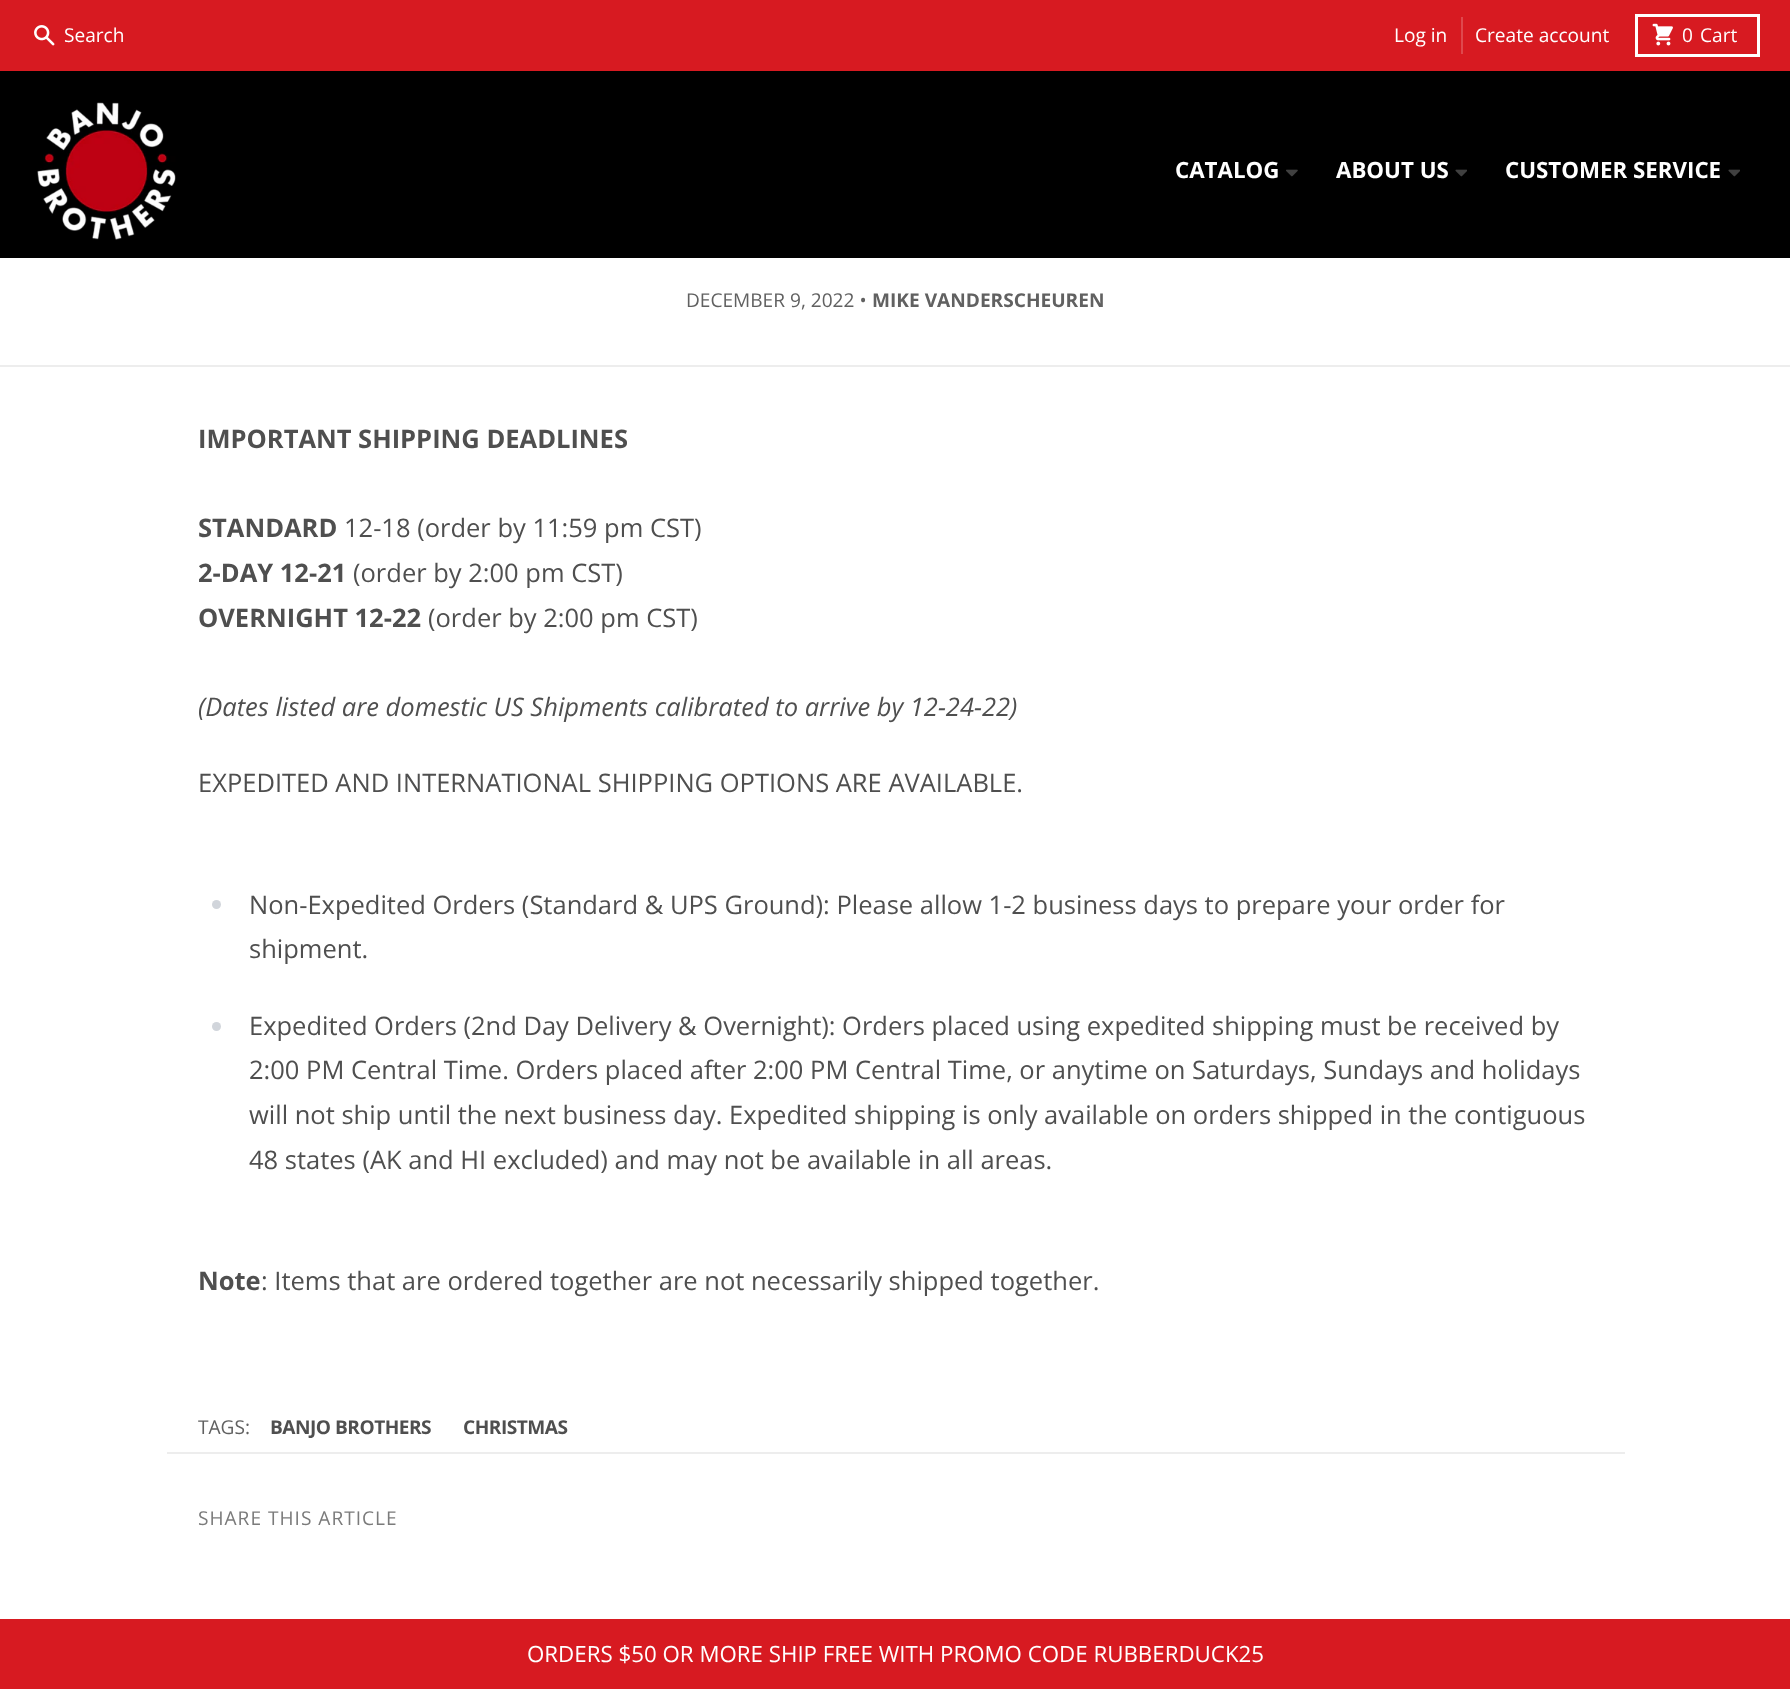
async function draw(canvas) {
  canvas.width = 1790
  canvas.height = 1689
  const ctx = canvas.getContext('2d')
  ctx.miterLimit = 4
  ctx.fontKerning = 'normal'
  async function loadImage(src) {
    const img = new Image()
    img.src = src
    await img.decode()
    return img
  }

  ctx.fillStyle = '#fff'
  ctx.fillRect(0, 0, 1790, 1689)
  ctx.fillStyle = '#d71a21'
  ctx.fillRect(0, 0, 1790, 71)
  ctx.drawImage(await loadImage('image0.png'), 34, 25, 21, 21)
  ctx.font = '19.1px Open Sans'
  ctx.fillStyle = '#fff'
  ctx.fillText('Search', 64, 42)
  ctx.fillText('Log in', 1394, 42)
  ctx.fillStyle = '#df484d'
  ctx.fillRect(1461, 17, 2, 37)
  ctx.fillStyle = '#fff'
  ctx.fillText('Create account', 1475, 42)
  ctx.strokeStyle = '#fff'
  ctx.lineWidth = 3
  ctx.strokeRect(1636.5, 15.5, 122, 40)
  ctx.drawImage(await loadImage('image1.png'), 1652, 23, 21, 23)
  ctx.fillText('0', 1682, 42)
  ctx.fillText('Cart', 1700, 42)
  ctx.fillStyle = '#000'
  ctx.fillRect(0, 71, 1790, 187)
  ctx.drawImage(await loadImage('image2.png'), 37, 102, 139, 138)
  ctx.font = 'bold 22.3px Open Sans'
  ctx.fillStyle = '#fff'
  ctx.fillText('CATALOG', 1175, 178)
  ctx.drawImage(await loadImage('image3.png'), 1286, 169, 12, 8)
  ctx.fillText('ABOUT US', 1336, 178)
  ctx.drawImage(await loadImage('image4.png'), 1455, 169, 12, 8)
  ctx.fillText('CUSTOMER SERVICE', 1505, 178)
  ctx.drawImage(await loadImage('image4.png'), 1728, 169, 12, 8)
  ctx.fillStyle = '#ededed'
  ctx.fillRect(0, 365, 1790, 2)
  ctx.font = '19.1px Open Sans'
  ctx.fillStyle = '#616161'
  ctx.fillText('DECEMBER 9, 2022 •', 686, 307)
  ctx.font = 'bold 19.1px Open Sans'
  ctx.fillText('MIKE VANDERSCHEUREN', 872, 307)
  ctx.font = 'bold 25.5px Open Sans'
  ctx.fillStyle = '#4f4f4f'
  ctx.fillText('IMPORTANT SHIPPING DEADLINES', 198, 448)
  ctx.fillText('STANDARD', 198, 537)
  ctx.font = '25.5px Open Sans'
  ctx.fillText('12-18 (order by 11:59 pm CST)', 344, 537)
  ctx.font = 'bold 25.5px Open Sans'
  ctx.fillText('2-DAY 12-21', 198, 582)
  ctx.font = '25.5px Open Sans'
  ctx.fillText('(order by 2:00 pm CST)', 353, 582)
  ctx.font = 'bold 25.5px Open Sans'
  ctx.fillText('OVERNIGHT 12-22', 198, 627)
  ctx.font = '25.5px Open Sans'
  ctx.fillText('(order by 2:00 pm CST)', 428, 627)
  ctx.font = 'italic 25.5px Open Sans'
  ctx.fillText('(Dates listed are domestic US Shipments calibrated to arrive by 12-24-22)', 198, 716)
  ctx.font = '25.5px Open Sans'
  ctx.fillText('EXPEDITED AND INTERNATIONAL SHIPPING OPTIONS ARE AVAILABLE.', 198, 792)
  ctx.fillStyle = '#d1d5db'
  ctx.beginPath()
  ctx.arc(216.5, 904.5, 4.5, 0, 2 * Math.PI)
  ctx.fill()
  ctx.fillStyle = '#4f4f4f'
  ctx.fillText('Non-Expedited Orders (Standard & UPS Ground): Please allow 1-2 business days to prepare your order for', 249, 914)
  ctx.fillText('shipment.', 249, 958)
  ctx.fillStyle = '#d1d5db'
  ctx.beginPath()
  ctx.arc(216.5, 1026.5, 4.5, 0, 2 * Math.PI)
  ctx.fill()
  ctx.fillStyle = '#4f4f4f'
  ctx.fillText('Expedited Orders (2nd Day Delivery & Overnight): Orders placed using expedited shipping must be received by', 249, 1035)
  ctx.fillText('2:00 PM Central Time. Orders placed after 2:00 PM Central Time, or anytime on Saturdays, Sundays and holidays', 249, 1079)
  ctx.fillText('will not ship until the next business day. Expedited shipping is only available on orders shipped in the contiguous', 249, 1124)
  ctx.fillText('48 states (AK and HI excluded) and may not be available in all areas.', 249, 1169)
  ctx.font = 'bold 25.5px Open Sans'
  ctx.fillText('Note', 198, 1290)
  ctx.font = '25.5px Open Sans'
  ctx.fillText(': Items that are ordered together are not necessarily shipped together.', 261, 1290)
  ctx.fillStyle = '#ededed'
  ctx.fillRect(167, 1452, 1458, 2)
  ctx.font = '19.1px Open Sans'
  ctx.fillStyle = '#616161'
  ctx.fillText('TAGS:', 198, 1434)
  ctx.letterSpacing = '-0.5px'
  ctx.font = 'bold 19.1px Open Sans'
  ctx.fillStyle = '#4f4f4f'
  ctx.fillText('BANJO BROTHERS', 270, 1434)
  ctx.fillText('CHRISTMAS', 463, 1434)
  ctx.letterSpacing = '1px'
  ctx.font = '19.1px Open Sans'
  ctx.fillStyle = '#7b7b7b'
  ctx.fillText('SHARE THIS ARTICLE', 198, 1525)
  ctx.fillStyle = '#d71a21'
  ctx.fillRect(0, 1619, 1790, 70)
  ctx.letterSpacing = '0px'
  ctx.font = '22.3px Open Sans'
  ctx.fillStyle = '#fff'
  ctx.fillText('ORDERS $50 OR MORE SHIP FREE WITH PROMO CODE RUBBERDUCK25', 527, 1662)
}

draw(document.querySelector('canvas'))
